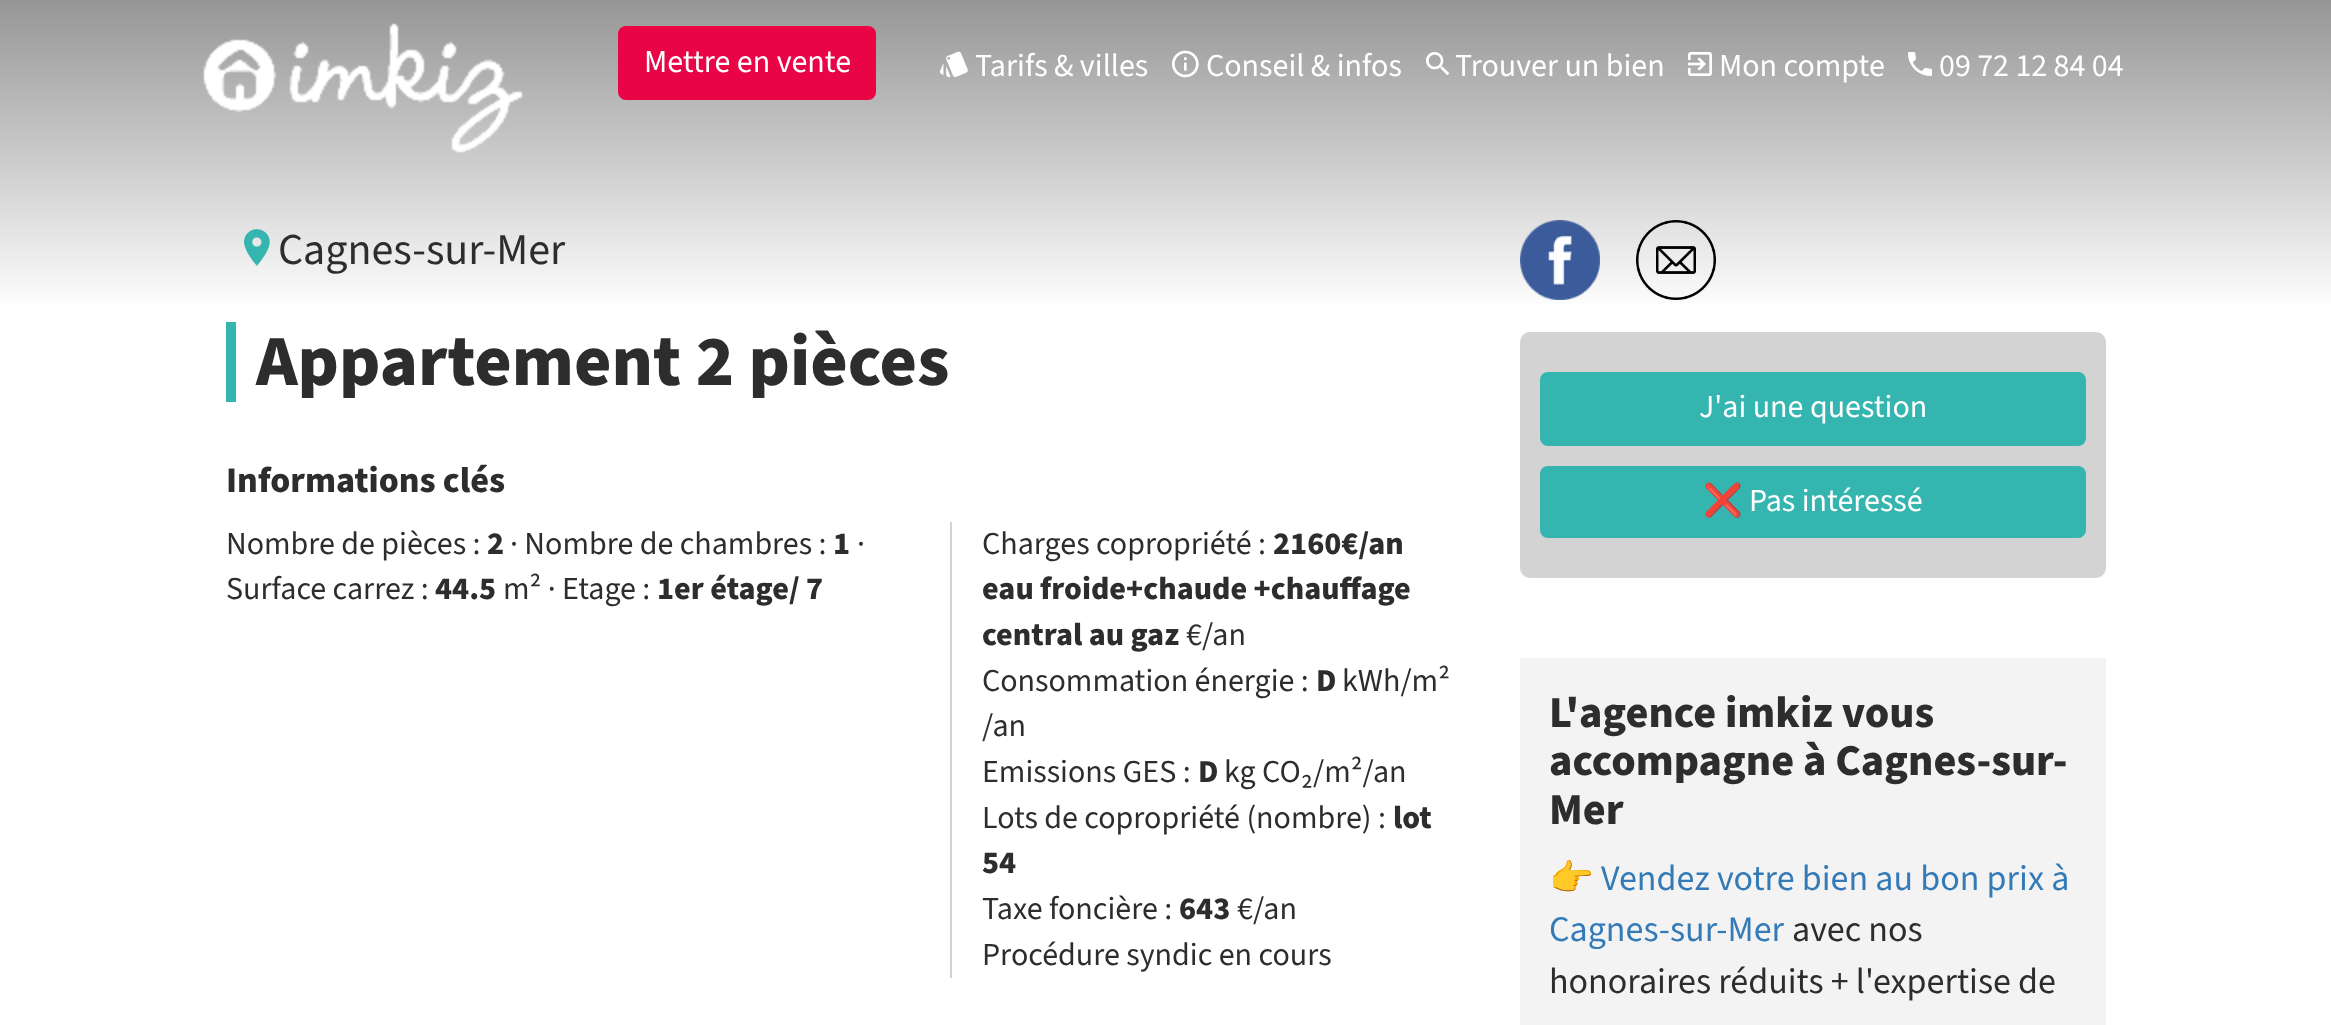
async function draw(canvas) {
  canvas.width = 2331
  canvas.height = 1025
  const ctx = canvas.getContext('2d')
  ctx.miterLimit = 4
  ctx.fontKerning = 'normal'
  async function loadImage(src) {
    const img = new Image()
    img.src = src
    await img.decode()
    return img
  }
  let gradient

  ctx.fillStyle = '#fff'
  ctx.fillRect(0, 0, 2331, 1025)
  gradient = ctx.createLinearGradient(1166, 0, 1166, 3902)
  gradient.addColorStop(0, '#969696')
  gradient.addColorStop(0.08, '#fff')
  ctx.fillStyle = gradient
  ctx.fillRect(0, 0, 2331, 305)
  ctx.drawImage(await loadImage('image0.png'), 203, 23, 320, 130)
  ctx.fillStyle = '#e80445'
  ctx.beginPath()
  ctx.roundRect(618, 26, 258, 74, 8)
  ctx.fill()
  ctx.font = '32px "Source Sans 3"'
  ctx.fillStyle = '#fff'
  ctx.fillText('Mettre en vente', 644, 72)
  ctx.drawImage(await loadImage('image1.png'), 940, 51, 28, 26)
  ctx.fillText('Tarifs & villes', 975, 76)
  ctx.drawImage(await loadImage('image2.png'), 1172, 50, 27, 28)
  ctx.fillText('Conseil & infos', 1206, 76)
  ctx.drawImage(await loadImage('image3.png'), 1426, 52, 24, 24)
  ctx.fillText('Trouver un bien', 1455, 76)
  ctx.drawImage(await loadImage('image4.png'), 1688, 52, 24, 24)
  ctx.fillText('Mon compte', 1719, 76)
  ctx.drawImage(await loadImage('image5.png'), 1908, 52, 24, 24)
  ctx.fillText('09 72 12 84 04', 1939, 76)
  ctx.drawImage(await loadImage('image6.png'), 244, 229, 26, 37)
  ctx.font = '44px "Source Sans 3"'
  ctx.fillStyle = '#2d2d2d'
  ctx.fillText('Cagnes-sur-Mer', 278, 264)
  ctx.fillStyle = '#34b5b0'
  ctx.fillRect(226, 322, 10, 80)
  ctx.font = '800 72px "Source Sans 3"'
  ctx.fillStyle = '#2d2d2d'
  ctx.fillText('Appartement 2 pièces', 256, 385)
  ctx.font = '800 36px "Source Sans 3"'
  ctx.fillText('Informations clés', 226, 492)
  ctx.font = '32px "Source Sans 3"'
  ctx.fillText('Nombre de pièces :', 226, 554)
  ctx.font = '800 32px "Source Sans 3"'
  ctx.fillText('2', 487, 554)
  ctx.font = '32px "Source Sans 3"'
  ctx.fillText('· Nombre de chambres :', 510, 554)
  ctx.font = '800 32px "Source Sans 3"'
  ctx.fillText('1', 833, 554)
  ctx.font = '32px "Source Sans 3"'
  ctx.fillText('·', 857, 554)
  ctx.fillText('Surface carrez :', 226, 599)
  ctx.font = '800 32px "Source Sans 3"'
  ctx.fillText('44.5', 435, 599)
  ctx.font = '32px "Source Sans 3"'
  ctx.fillText('m² · Etage :', 503, 599)
  ctx.font = '800 32px "Source Sans 3"'
  ctx.fillText('1er étage/ 7', 657, 599)
  ctx.fillStyle = '#d3d3d3'
  ctx.fillRect(950, 522, 2, 456)
  ctx.font = '32px "Source Sans 3"'
  ctx.fillStyle = '#2d2d2d'
  ctx.fillText('Charges copropriété :', 982, 554)
  ctx.font = '800 32px "Source Sans 3"'
  ctx.fillText('2160€/an', 1273, 554)
  ctx.fillText('eau froide+chaude +chauffage', 982, 599)
  ctx.fillText('central au gaz', 982, 645)
  ctx.font = '32px "Source Sans 3"'
  ctx.fillText('€/an', 1186, 645)
  ctx.fillText('Consommation énergie :', 982, 691)
  ctx.font = '800 32px "Source Sans 3"'
  ctx.fillText('D', 1316, 691)
  ctx.font = '32px "Source Sans 3"'
  ctx.fillText('kWh/m²', 1342, 691)
  ctx.fillText('/an', 982, 736)
  ctx.fillText('Emissions GES :', 982, 782)
  ctx.font = '800 32px "Source Sans 3"'
  ctx.fillText('D', 1198, 782)
  ctx.font = '32px "Source Sans 3"'
  ctx.fillText('kg CO', 1224, 782)
  ctx.font = '32px "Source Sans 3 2"'
  ctx.fillText('₂', 1301, 782)
  ctx.font = '32px "Source Sans 3"'
  ctx.fillText('/m²/an', 1313, 782)
  ctx.fillText('Lots de copropriété (nombre) :', 982, 828)
  ctx.font = '800 32px "Source Sans 3"'
  ctx.fillText('lot', 1393, 828)
  ctx.fillText('54', 982, 873)
  ctx.font = '32px "Source Sans 3"'
  ctx.fillText('Taxe foncière :', 982, 919)
  ctx.font = '800 32px "Source Sans 3"'
  ctx.fillText('643', 1179, 919)
  ctx.font = '32px "Source Sans 3"'
  ctx.fillText('€/an', 1237, 919)
  ctx.fillText('Procédure syndic en cours', 982, 965)
  ctx.drawImage(await loadImage('image7.png'), 1520, 220, 80, 80)
  ctx.drawImage(await loadImage('image8.png'), 1636, 220, 80, 80)
  ctx.fillStyle = '#d3d3d3'
  ctx.beginPath()
  ctx.roundRect(1520, 332, 586, 246, 10)
  ctx.fill()
  ctx.fillStyle = '#34b5b0'
  ctx.beginPath()
  ctx.roundRect(1540, 372, 546, 74, 8)
  ctx.fill()
  ctx.fillStyle = '#fff'
  ctx.fillText('J\'ai une question', 1699, 417)
  ctx.fillStyle = '#34b5b0'
  ctx.beginPath()
  ctx.roundRect(1540, 466, 546, 72, 8)
  ctx.fill()
  ctx.font = '32px Noto Color Emoji'
  ctx.fillStyle = '#fff'
  ctx.fillText('❌', 1703, 511)
  ctx.font = '32px "Source Sans 3"'
  ctx.fillText('Pas intéressé', 1749, 511)
  ctx.fillStyle = '#f3f3f3'
  ctx.fillRect(1520, 658, 586, 367)
  ctx.font = '800 44px "Source Sans 3"'
  ctx.fillStyle = '#2d2d2d'
  ctx.fillText('L\'agence imkiz vous', 1549, 727)
  ctx.fillText('accompagne à Cagnes-sur-', 1549, 775)
  ctx.fillText('Mer', 1549, 824)
  ctx.font = '36px Noto Color Emoji'
  ctx.fillStyle = '#337ab7'
  ctx.fillText('👉', 1549, 890)
  ctx.font = '36px "Source Sans 3"'
  ctx.fillText('Vendez votre bien au bon prix à', 1601, 890)
  ctx.fillText('Cagnes-sur-Mer', 1549, 941)
  ctx.fillStyle = '#2d2d2d'
  ctx.fillText('avec nos', 1792, 941)
  ctx.fillText('honoraires réduits + l\'expertise de', 1549, 993)
}

draw(document.querySelector('canvas'))
